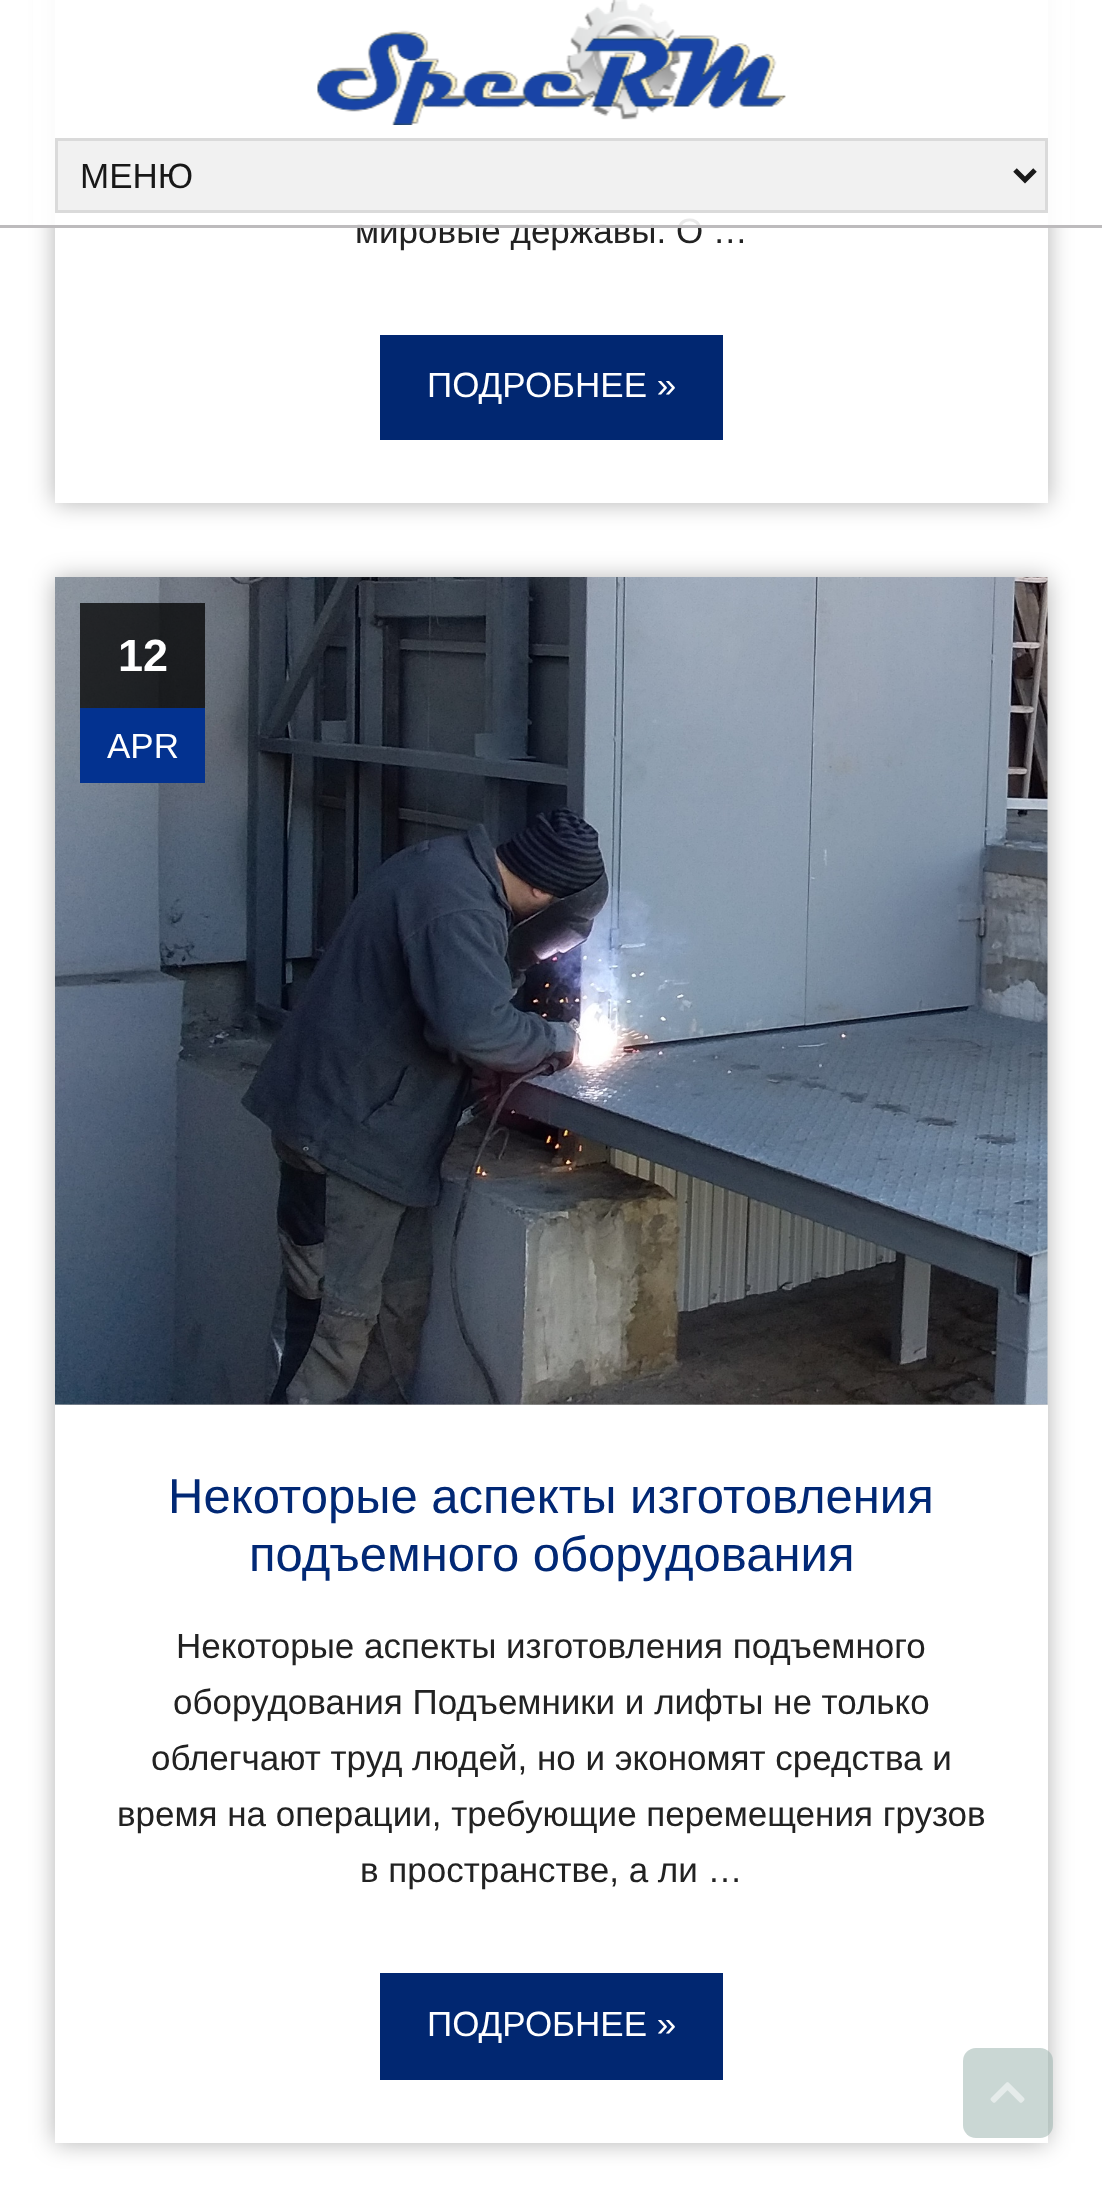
async function draw(canvas) {
  canvas.width = 1102
  canvas.height = 2187
  const ctx = canvas.getContext('2d')
  ctx.miterLimit = 4
  ctx.fontKerning = 'normal'
  async function loadImage(src) {
    const img = new Image()
    img.src = src
    await img.decode()
    return img
  }

  ctx.fillStyle = '#fff'
  ctx.fillRect(0, 0, 1102, 2187)
  ctx.fillStyle = '#0000004d'
  ctx.filter = 'blur(12.5px)'
  ctx.beginPath()
  ctx.rect(55, -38, 993, 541)
  ctx.fill()
  ctx.filter = 'none'
  ctx.fillStyle = '#fff'
  ctx.fillRect(55, 0, 993, 503)
  ctx.font = '35px Liberation Sans'
  ctx.fillStyle = '#222'
  ctx.fillText('мировые державы. О …', 355, 243)
  ctx.fillStyle = '#ffffffe6'
  ctx.fillRect(33, 0, 1037, 228)
  ctx.fillStyle = '#b6b4b6e6'
  ctx.fillRect(0, 225, 1102, 3)
  ctx.drawImage(await loadImage('image0.png'), 317, 0, 469, 125)
  ctx.fillStyle = '#efefefe6'
  ctx.beginPath()
  ctx.rect(56.5, 139.5, 990, 72)
  ctx.fill()
  ctx.strokeStyle = '#dadada'
  ctx.lineWidth = 3
  ctx.stroke()
  ctx.beginPath()
  ctx.moveTo(1015, 170)
  ctx.lineTo(1025, 180)
  ctx.lineTo(1035, 170)
  ctx.strokeStyle = '#1a1a1a'
  ctx.lineWidth = 5
  ctx.stroke()
  ctx.fillStyle = '#181818'
  ctx.fillText('МЕНЮ', 80, 188)
  ctx.fillStyle = '#012771'
  ctx.fillRect(380, 335, 343, 105)
  ctx.fillStyle = '#fff'
  ctx.fillText('ПОДРОБНЕЕ »', 427, 397)
  ctx.fillStyle = '#0000004d'
  ctx.filter = 'blur(12.5px)'
  ctx.beginPath()
  ctx.rect(55, 578, 993, 1565)
  ctx.fill()
  ctx.filter = 'none'
  ctx.drawImage(await loadImage('image1.png'), 55, 577, 993, 828)
  ctx.fillStyle = '#000000bf'
  ctx.fillRect(80, 603, 125, 105)
  ctx.font = 'bold 45px Liberation Sans'
  ctx.fillStyle = '#fff'
  ctx.fillText('12', 118, 671)
  ctx.fillStyle = '#033290'
  ctx.fillRect(80, 708, 125, 75)
  ctx.font = '35px Liberation Sans'
  ctx.fillStyle = '#fff'
  ctx.fillText('APR', 107, 758)
  ctx.fillRect(55, 1405, 993, 738)
  ctx.font = '49px Liberation Sans'
  ctx.fillStyle = '#012875'
  ctx.fillText('Некоторые аспекты изготовления', 168, 1513)
  ctx.fillText('подъемного оборудования', 249, 1571)
  ctx.font = '35px Liberation Sans'
  ctx.fillStyle = '#222'
  ctx.fillText('Некоторые аспекты изготовления подъемного', 176, 1658)
  ctx.fillText('оборудования Подъемники и лифты не только', 173, 1714)
  ctx.fillText('облегчают труд людей, но и экономят средства и', 151, 1770)
  ctx.fillText('время на операции, требующие перемещения грузов', 117, 1826)
  ctx.fillText('в пространстве, а ли …', 360, 1882)
  ctx.fillStyle = '#012771'
  ctx.fillRect(380, 1973, 343, 107)
  ctx.fillStyle = '#fff'
  ctx.fillText('ПОДРОБНЕЕ »', 427, 2036)
  ctx.fillStyle = '#96afaa80'
  ctx.beginPath()
  ctx.roundRect(963, 2048, 90, 90, 13)
  ctx.fill()
  ctx.drawImage(await loadImage('image2.png'), 990, 2082, 35, 21)
}

draw(document.querySelector('canvas'))
